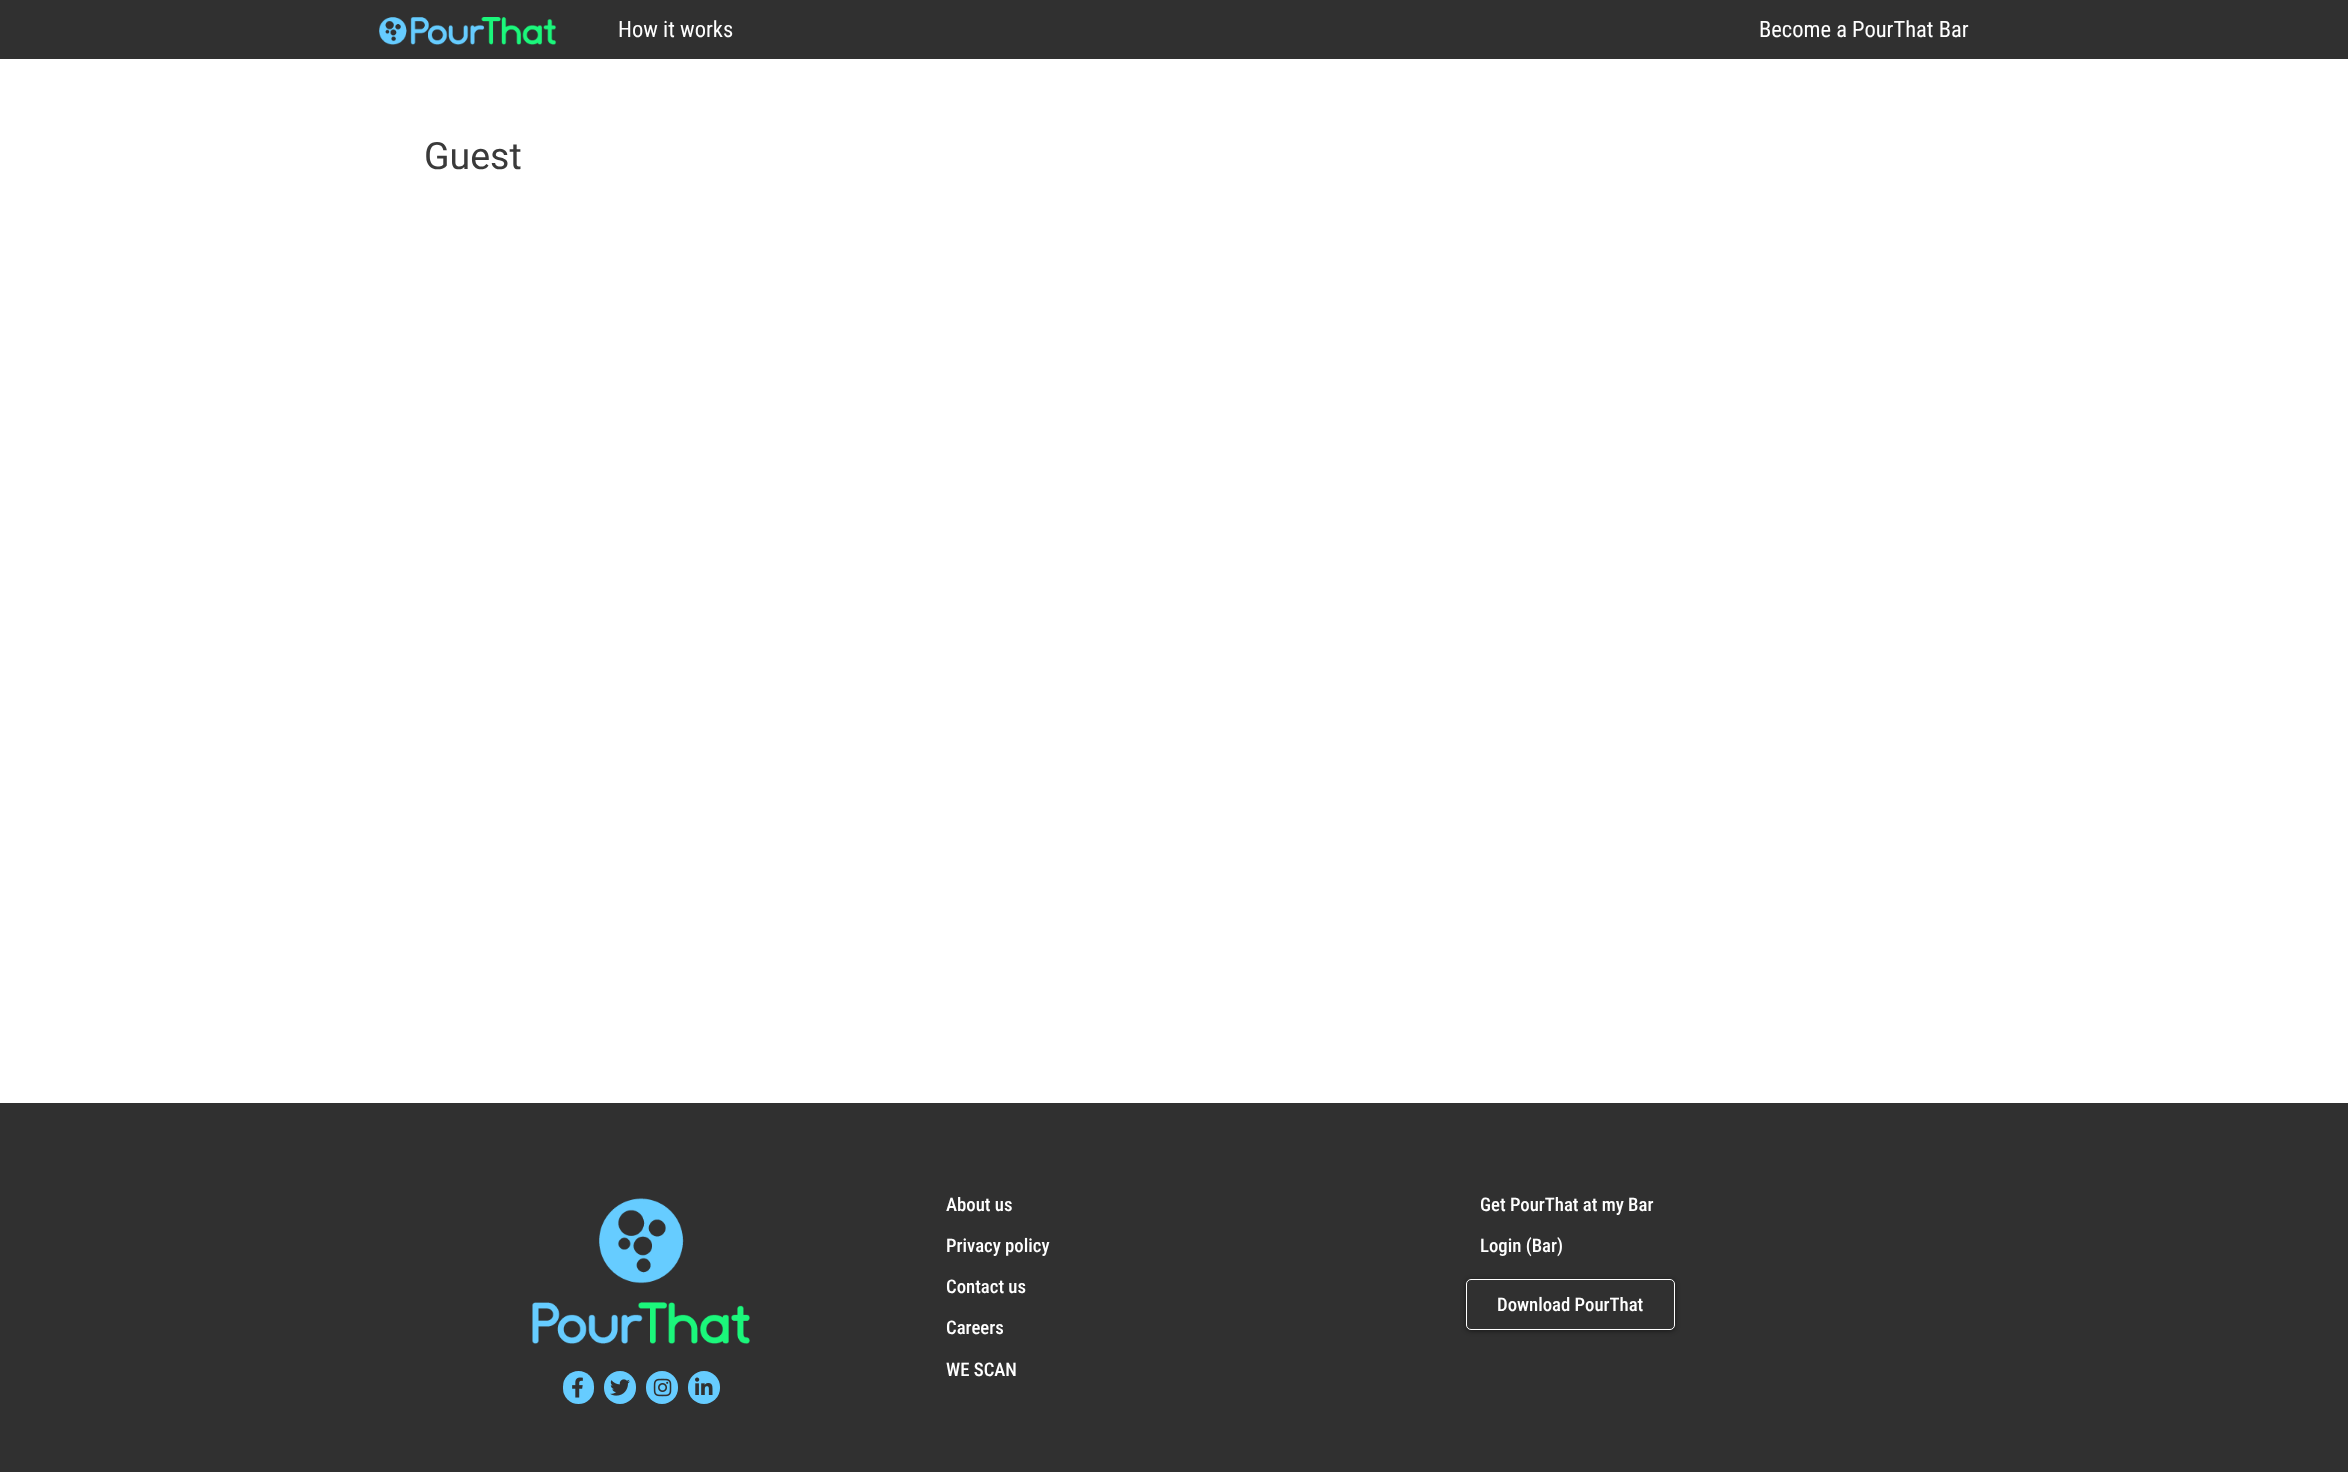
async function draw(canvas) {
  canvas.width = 2348
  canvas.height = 1472
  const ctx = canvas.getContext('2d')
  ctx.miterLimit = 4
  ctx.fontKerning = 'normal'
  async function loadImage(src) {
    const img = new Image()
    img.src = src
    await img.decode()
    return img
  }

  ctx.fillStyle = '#fff'
  ctx.fillRect(0, 0, 2348, 1472)
  ctx.fillStyle = '#303030'
  ctx.fillRect(0, 0, 2348, 59)
  ctx.drawImage(await loadImage('image0.png'), 379, 17, 178, 28)
  ctx.font = '22.5px Roboto Condensed'
  ctx.fillStyle = '#fff'
  ctx.fillText('How it works', 618, 37)
  ctx.fillText('Become a PourThat Bar', 1759, 37)
  ctx.font = '37.5px Roboto'
  ctx.fillStyle = '#3a3a3a'
  ctx.fillText('Guest', 424, 169)
  ctx.fillStyle = '#303030'
  ctx.fillRect(0, 1103, 2348, 369)
  ctx.drawImage(await loadImage('image1.png'), 532, 1198, 218, 146)
  ctx.fillStyle = '#6cf'
  ctx.beginPath()
  ctx.roundRect(563, 1371, 31, 33, 15.5)
  ctx.fill()
  ctx.drawImage(await loadImage('image2.png'), 572, 1377, 11, 21)
  ctx.beginPath()
  ctx.roundRect(604, 1371, 32, 33, 16)
  ctx.fill()
  ctx.drawImage(await loadImage('image3.png'), 610, 1379, 20, 17)
  ctx.beginPath()
  ctx.roundRect(646, 1371, 32, 33, 16)
  ctx.fill()
  ctx.drawImage(await loadImage('image4.png'), 653, 1378, 19, 19)
  ctx.beginPath()
  ctx.roundRect(688, 1371, 32, 33, 16)
  ctx.fill()
  ctx.drawImage(await loadImage('image5.png'), 695, 1377, 18, 18)
  ctx.font = '500 18.75px Roboto Condensed'
  ctx.fillStyle = '#fff'
  ctx.fillText('About us', 946, 1211)
  ctx.fillText('Privacy policy', 946, 1252)
  ctx.fillText('Contact us', 946, 1293)
  ctx.fillText('Careers', 946, 1334)
  ctx.fillText('WE SCAN', 946, 1376)
  ctx.fillText('Get PourThat at my Bar', 1480, 1211)
  ctx.fillText('Login (Bar)', 1480, 1252)
  ctx.fillStyle = '#00000080'
  ctx.filter = 'blur(2.5px)'
  ctx.beginPath()
  ctx.roundRect(1466, 1280, 209, 51, 5)
  ctx.fill()
  ctx.filter = 'none'
  ctx.fillStyle = '#303030'
  ctx.beginPath()
  ctx.roundRect(1466.5, 1279.5, 208, 50, 4.5)
  ctx.fill()
  ctx.strokeStyle = '#fff'
  ctx.stroke()
  ctx.fillStyle = '#fff'
  ctx.fillText('Download PourThat', 1497, 1311)
}

draw(document.querySelector('canvas'))
